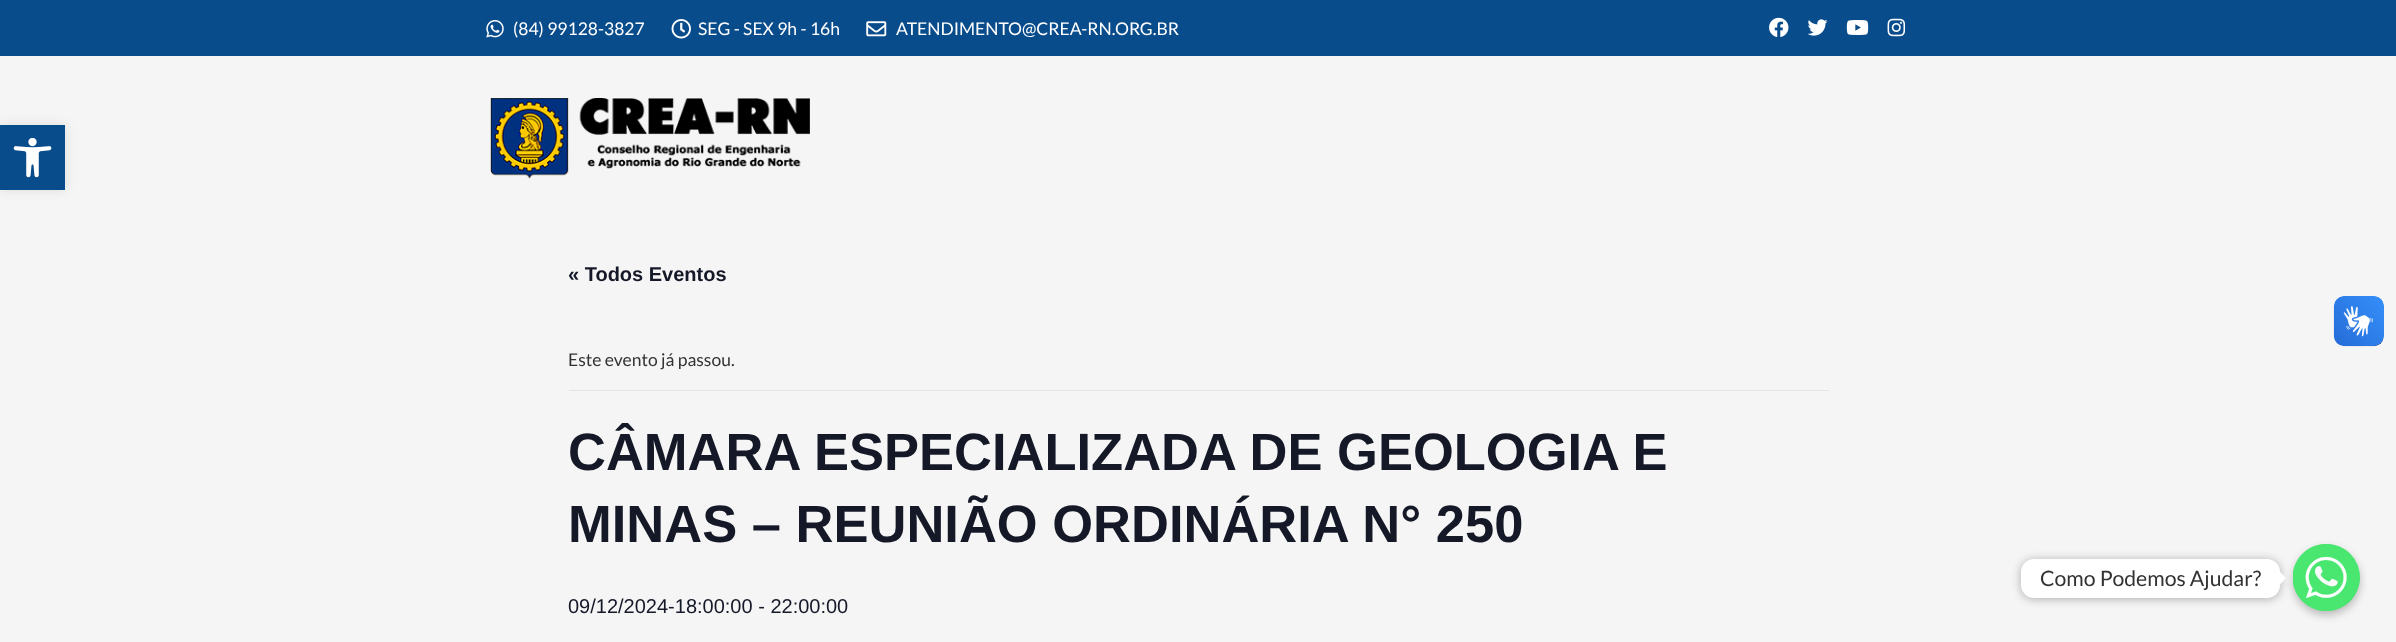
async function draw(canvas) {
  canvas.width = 2396
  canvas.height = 642
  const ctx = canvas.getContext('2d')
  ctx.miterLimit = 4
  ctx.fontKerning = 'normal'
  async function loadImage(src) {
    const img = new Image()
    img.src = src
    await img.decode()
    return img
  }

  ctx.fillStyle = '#f5f5f5'
  ctx.fillRect(0, 0, 2396, 642)
  ctx.fillStyle = '#0000001a'
  ctx.filter = 'blur(6px)'
  ctx.beginPath()
  ctx.rect(0, 125, 65, 65)
  ctx.fill()
  ctx.filter = 'none'
  ctx.fillStyle = '#094c8c'
  ctx.fillRect(0, 125, 65, 65)
  ctx.drawImage(await loadImage('image0.png'), 13, 138, 39, 40)
  ctx.fillRect(0, 0, 2396, 56)
  ctx.drawImage(await loadImage('image1.png'), 486, 20, 18, 18)
  ctx.font = '17.5px Lato'
  ctx.fillStyle = '#fff'
  ctx.fillText('(84) 99128-3827', 513, 35)
  ctx.drawImage(await loadImage('image2.png'), 671, 19, 20, 20)
  ctx.fillText('SEG - SEX 9h - 16h', 698, 35)
  ctx.drawImage(await loadImage('image3.png'), 866, 21, 21, 16)
  ctx.fillText('ATENDIMENTO@CREA-RN.ORG.BR', 896, 35)
  ctx.drawImage(await loadImage('image4.png'), 1769, 17, 20, 20)
  ctx.drawImage(await loadImage('image5.png'), 1807, 19, 21, 17)
  ctx.drawImage(await loadImage('image6.png'), 1846, 20, 23, 15)
  ctx.drawImage(await loadImage('image7.png'), 1887, 18, 19, 19)
  ctx.drawImage(await loadImage('image8.png'), 490, 98, 320, 81)
  ctx.font = 'bold 20px Liberation Sans'
  ctx.fillStyle = '#141827'
  ctx.fillText('« Todos Eventos', 568, 281)
  ctx.fillStyle = '#e4e4e4'
  ctx.fillRect(569, 390, 1260, 1)
  ctx.font = '17.5px Lato'
  ctx.fillStyle = '#333'
  ctx.fillText('Este evento já passou.', 568, 366)
  ctx.font = 'bold 52.5px Liberation Sans'
  ctx.fillStyle = '#141827'
  ctx.fillText('CÂMARA ESPECIALIZADA DE GEOLOGIA E', 568, 470)
  ctx.fillText('MINAS – REUNIÃO ORDINÁRIA N° 250', 568, 542)
  ctx.font = '20px Liberation Sans'
  ctx.fillText('09/12/2024-18:00:00 - 22:00:00', 568, 613)
  ctx.drawImage(await loadImage('image9.png'), 2333, 296, 51, 51)
  ctx.drawImage(await loadImage('image10.png'), 2334, 296, 50, 50)
  ctx.fillStyle = '#00000040'
  ctx.filter = 'blur(4px)'
  ctx.beginPath()
  ctx.roundRect(2293, 548, 67, 67, 33.5)
  ctx.fill()
  ctx.filter = 'none'
  ctx.fillStyle = '#49e670'
  ctx.beginPath()
  ctx.arc(2326.5, 577.5, 33.5, 0, 2 * Math.PI)
  ctx.fill()
  ctx.drawImage(await loadImage('image11.png'), 2293, 544, 67, 67)
  ctx.fillStyle = '#00000026'
  ctx.filter = 'blur(5px)'
  ctx.beginPath()
  ctx.roundRect(2021, 560, 259, 39, 13)
  ctx.fill()
  ctx.filter = 'none'
  ctx.filter = 'blur(5px)'
  ctx.beginPath()
  ctx.roundRect(2021, 560, 259, 39, 13)
  ctx.fill()
  ctx.filter = 'none'
  ctx.fillStyle = '#fff'
  ctx.beginPath()
  ctx.roundRect(2021, 559, 259, 39, 13)
  ctx.fill()
  ctx.font = '21.25px Lato'
  ctx.fillStyle = '#333'
  ctx.fillText('Como Podemos Ajudar?', 2040, 586)
  ctx.fillStyle = '#fff'
  ctx.beginPath()
  ctx.moveTo(2280, 584.5)
  ctx.lineTo(2280, 572)
  ctx.lineTo(2286, 578)
  ctx.closePath()
  ctx.fill()
}

draw(document.querySelector('canvas'))
